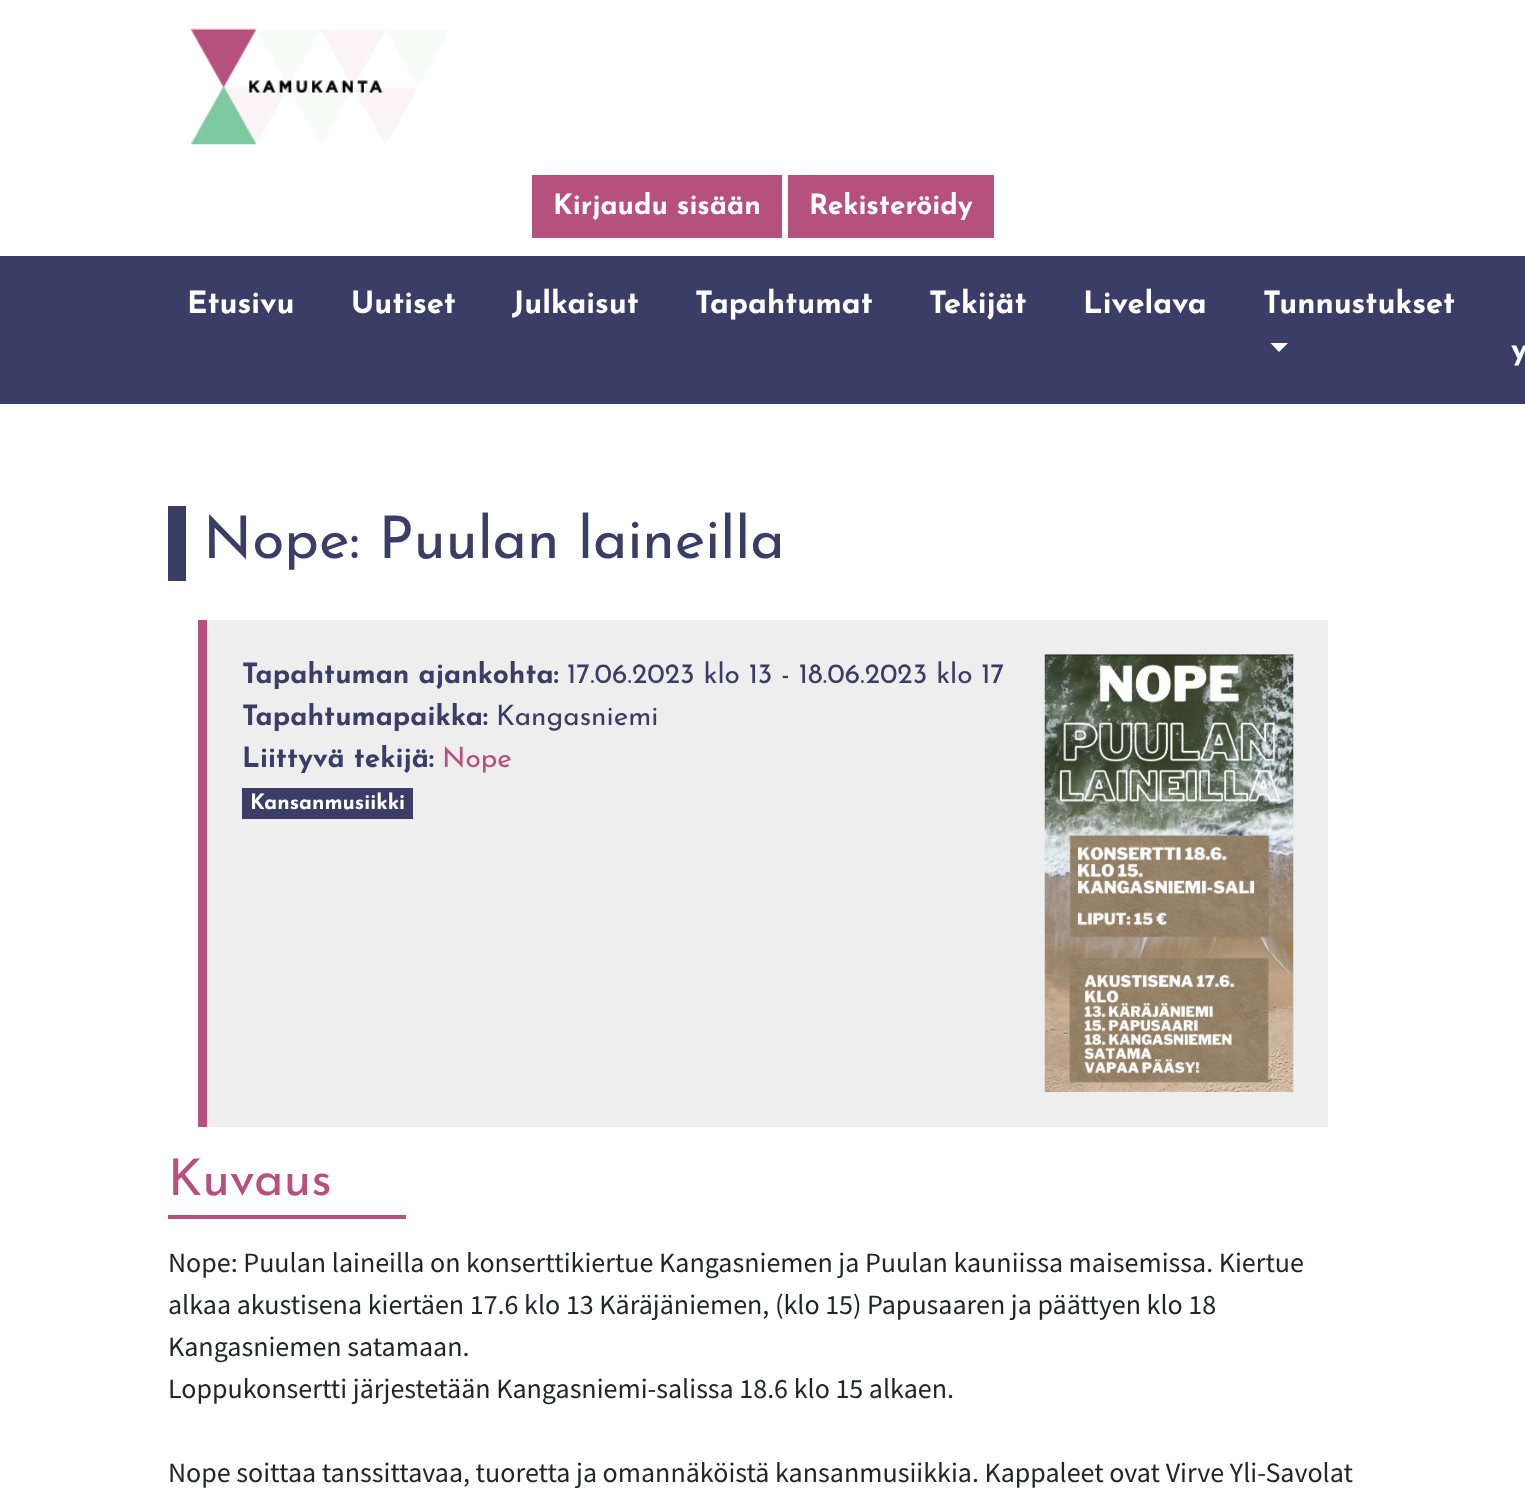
async function draw(canvas) {
  canvas.width = 1525
  canvas.height = 1511
  const ctx = canvas.getContext('2d')
  ctx.miterLimit = 4
  ctx.fontKerning = 'normal'
  async function loadImage(src) {
    const img = new Image()
    img.src = src
    await img.decode()
    return img
  }

  ctx.fillStyle = '#fff'
  ctx.fillRect(0, 0, 1525, 1511)
  ctx.drawImage(await loadImage('image0.png'), 190, 28, 260, 117)
  ctx.fillStyle = '#b6507e'
  ctx.fillRect(532, 175, 250, 63)
  ctx.font = 'bold 28px Josefin Sans'
  ctx.fillStyle = '#fff'
  ctx.fillText('Kirjaudu sisään', 553, 214)
  ctx.fillStyle = '#b6507e'
  ctx.fillRect(788, 175, 206, 63)
  ctx.fillStyle = '#fff'
  ctx.fillText('Rekisteröidy', 809, 214)
  ctx.fillStyle = '#3a3d66'
  ctx.fillRect(0, 256, 1525, 148)
  ctx.font = 'bold 30.75px Josefin Sans'
  ctx.fillStyle = '#fff'
  ctx.fillText('Etusivu', 187, 313)
  ctx.fillText('Uutiset', 351, 313)
  ctx.fillText('Julkaisut', 512, 313)
  ctx.fillText('Tapahtumat', 695, 313)
  ctx.fillText('Tekijät', 929, 313)
  ctx.fillText('Livelava', 1083, 313)
  ctx.fillText('Tunnustukset', 1263, 313)
  ctx.beginPath()
  ctx.moveTo(1270.5, 343)
  ctx.lineTo(1288, 343)
  ctx.lineTo(1279, 352)
  ctx.closePath()
  ctx.fill()
  ctx.fillText('y', 1511, 359)
  ctx.fillStyle = '#3a3d66'
  ctx.fillRect(168, 506, 18, 75)
  ctx.font = '58.75px Josefin Sans'
  ctx.fillText('Nope: Puulan laineilla', 203, 558)
  ctx.fillStyle = '#eee'
  ctx.fillRect(207, 620, 1121, 507)
  ctx.fillStyle = '#b6507e'
  ctx.fillRect(198, 620, 9, 507)
  ctx.font = 'bold 28px Josefin Sans'
  ctx.fillStyle = '#3a3d66'
  ctx.fillText('Tapahtuman ajankohta:', 242, 683)
  ctx.font = '28px Josefin Sans'
  ctx.fillText('17.06.2023 klo 13 - 18.06.2023 klo 17', 567, 683)
  ctx.drawImage(await loadImage('image1.png'), 1044, 654, 250, 438)
  ctx.font = 'bold 28px Josefin Sans'
  ctx.fillText('Tapahtumapaikka:', 242, 725)
  ctx.font = '28px Josefin Sans'
  ctx.fillText('Kangasniemi', 496, 725)
  ctx.font = 'bold 28px Josefin Sans'
  ctx.fillText('Liittyvä tekijä:', 242, 767)
  ctx.font = '28px Josefin Sans'
  ctx.fillStyle = '#b6507e'
  ctx.fillText('Nope', 442, 767)
  ctx.fillStyle = '#3a3d66'
  ctx.fillRect(242, 788, 171, 31)
  ctx.font = 'bold 21px Josefin Sans'
  ctx.fillStyle = '#fff'
  ctx.fillText('Kansanmusiikki', 250, 809)
  ctx.font = '50.5px Josefin Sans'
  ctx.fillStyle = '#b6507e'
  ctx.fillText('Kuvaus', 168, 1195)
  ctx.fillRect(168, 1215, 238, 4)
  ctx.font = '28px Source Sans Pro'
  ctx.fillStyle = '#212529'
  ctx.fillText('Nope: Puulan laineilla on konserttikiertue Kangasniemen ja Puulan kauniissa maisemissa. Kiertue', 168, 1272)
  ctx.fillText('alkaa akustisena kiertäen 17.6 klo 13 Käräjäniemen, (klo 15) Papusaaren ja päättyen klo 18', 168, 1314)
  ctx.fillText('Kangasniemen satamaan.', 168, 1356)
  ctx.fillText('Loppukonsertti järjestetään Kangasniemi-salissa 18.6 klo 15 alkaen.', 168, 1398)
  ctx.fillText('Nope soittaa tanssittavaa, tuoretta ja omannäköistä kansanmusiikkia. Kappaleet ovat Virve Yli-Savolat', 168, 1482)
}

draw(document.querySelector('canvas'))
